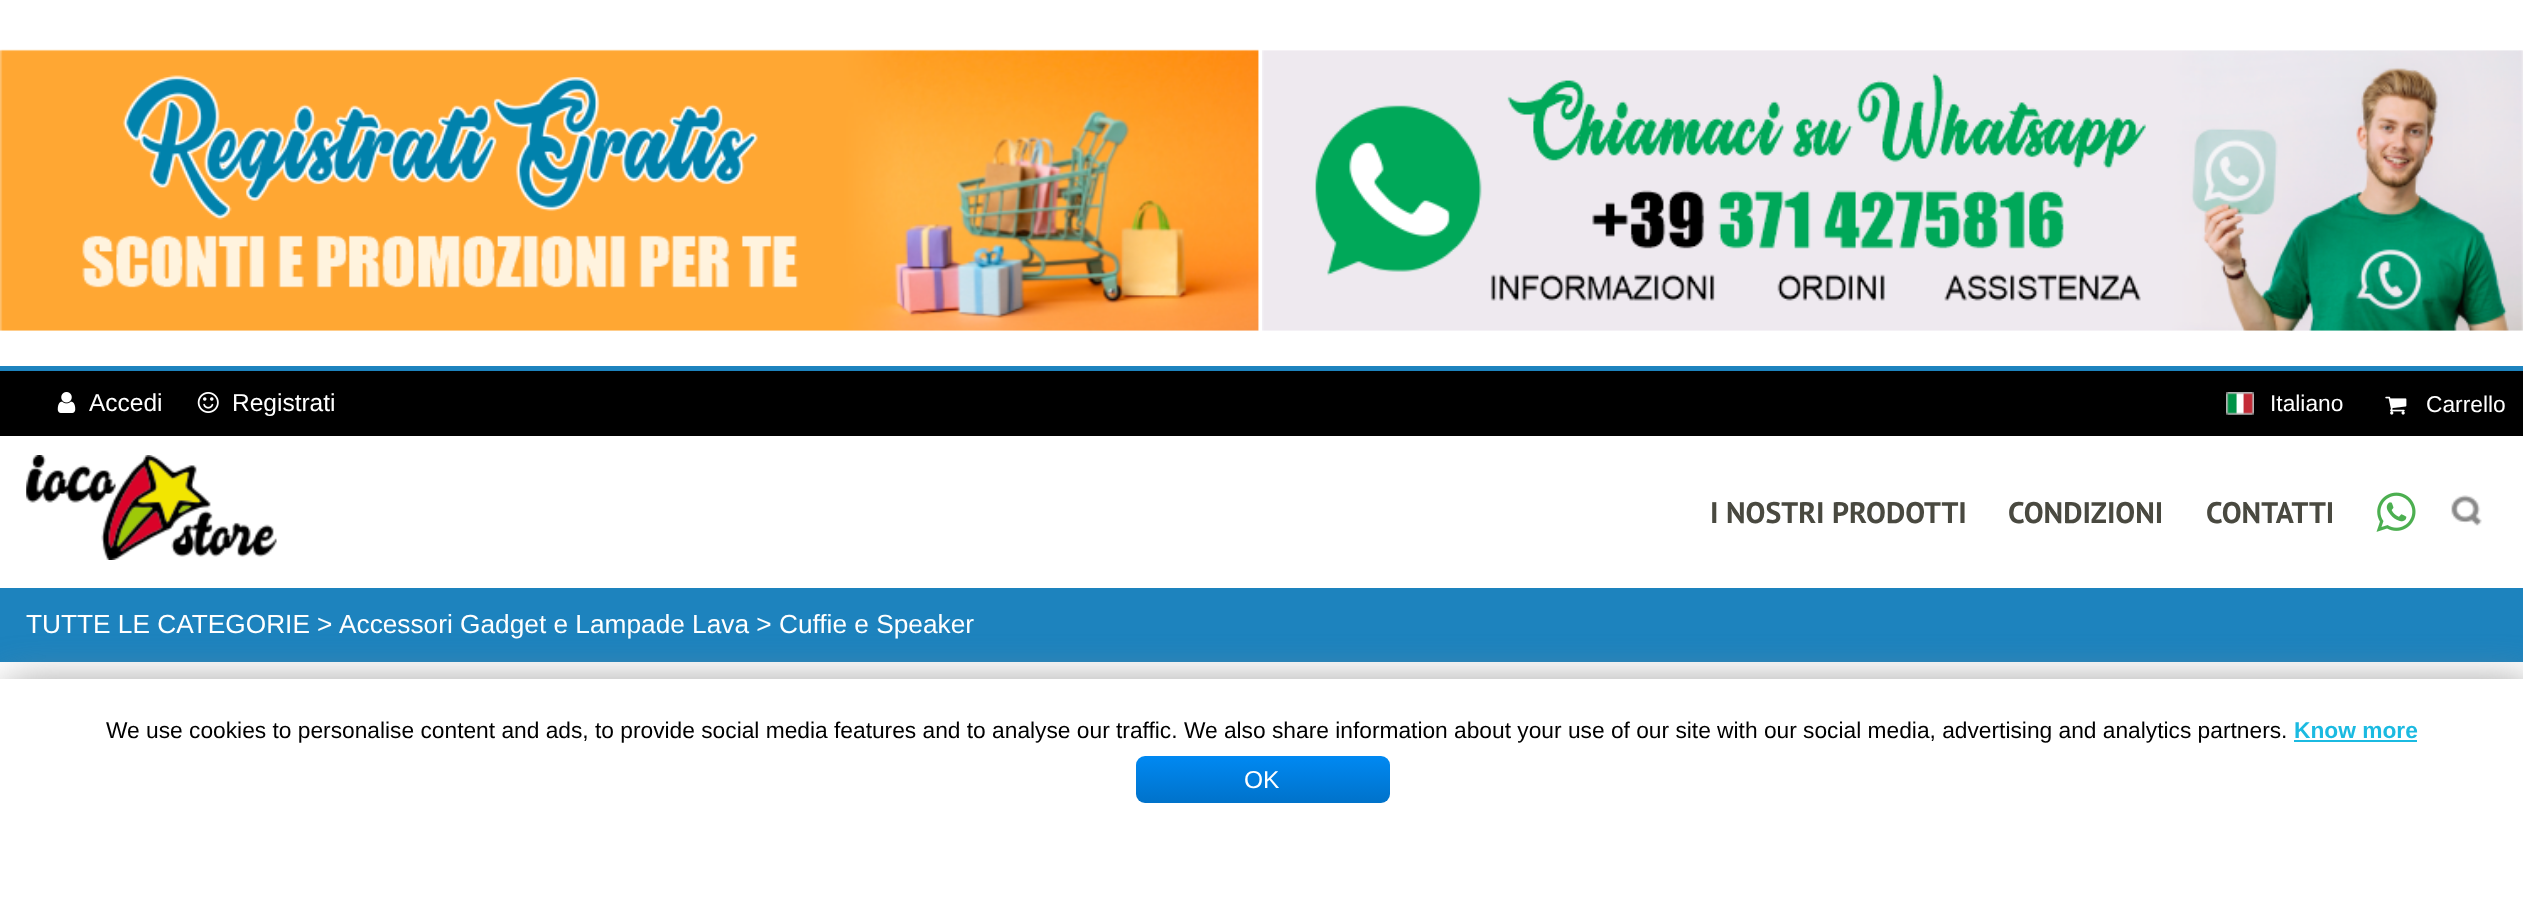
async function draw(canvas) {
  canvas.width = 2523
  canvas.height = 908
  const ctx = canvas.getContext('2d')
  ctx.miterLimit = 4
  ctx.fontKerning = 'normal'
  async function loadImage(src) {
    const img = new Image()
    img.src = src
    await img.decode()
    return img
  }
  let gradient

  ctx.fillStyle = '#fff'
  ctx.fillRect(0, 0, 2523, 908)
  ctx.drawImage(await loadImage('image0.png'), 0, 49, 1259, 282)
  ctx.drawImage(await loadImage('image1.png'), 1262, 50, 1261, 281)
  ctx.fillStyle = '#000'
  ctx.fillRect(0, 371, 2523, 65)
  ctx.fillStyle = '#1d83be'
  ctx.fillRect(0, 366, 2523, 5)
  ctx.drawImage(await loadImage('image2.png'), 57, 392, 19, 21)
  ctx.font = '24.5px Liberation Sans'
  ctx.fillStyle = '#fff'
  ctx.fillText('Accedi', 89, 411)
  ctx.drawImage(await loadImage('image3.png'), 197, 392, 22, 21)
  ctx.fillText('Registrati', 232, 411)
  ctx.drawImage(await loadImage('image4.png'), 2226, 392, 28, 23)
  ctx.font = '22.75px Liberation Sans'
  ctx.fillText('Italiano', 2270, 411)
  ctx.drawImage(await loadImage('image5.png'), 2385, 396, 22, 19)
  ctx.fillText('Carrello', 2426, 412)
  ctx.drawImage(await loadImage('image6.png'), 26, 455, 251, 105)
  ctx.font = 'bold 29.75px PT Sans'
  ctx.fillStyle = '#494940'
  ctx.fillText('I NOSTRI PRODOTTI', 1710, 523)
  ctx.fillText('CONDIZIONI', 2008, 523)
  ctx.fillText('CONTATTI', 2206, 523)
  ctx.drawImage(await loadImage('image7.png'), 2376, 492, 40, 40)
  ctx.drawImage(await loadImage('image8.png'), 2451, 495, 31, 31)
  ctx.fillStyle = '#1d83be'
  ctx.fillRect(0, 588, 2523, 74)
  ctx.font = '26.25px Liberation Sans'
  ctx.fillStyle = '#fff'
  ctx.fillText('TUTTE LE CATEGORIE', 26, 633)
  ctx.fillText('>', 317, 633)
  ctx.fillText('Accessori Gadget e Lampade Lava > Cuffie e Speaker', 339, 633)
  ctx.fillStyle = '#888'
  ctx.filter = 'blur(22px)'
  ctx.beginPath()
  ctx.rect(7, 686, 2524, 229)
  ctx.fill()
  ctx.filter = 'none'
  ctx.fillStyle = '#fff'
  ctx.fillRect(0, 679, 2523, 229)
  ctx.font = '22.75px Liberation Sans'
  ctx.fillStyle = '#000'
  ctx.fillText('We use cookies to personalise content and ads, to provide social media features and to analyse our traffic. We also share information about your use of our site with our social media, advertising and analytics partners.', 106, 738)
  ctx.font = 'bold 22.75px Liberation Sans'
  ctx.fillStyle = '#1bbae1'
  ctx.fillText('Know more', 2294, 738)
  ctx.fillRect(2294, 740, 123, 2)
  gradient = ctx.createLinearGradient(1263, 756, 1263, 803)
  gradient.addColorStop(0, '#0089f2')
  gradient.addColorStop(1, '#0072ca')
  ctx.fillStyle = gradient
  ctx.beginPath()
  ctx.roundRect(1136, 756, 254, 47, 9)
  ctx.fill()
  ctx.font = '24.5px Liberation Sans'
  ctx.fillStyle = '#fff'
  ctx.fillText('OK', 1244, 788)
}

draw(document.querySelector('canvas'))
